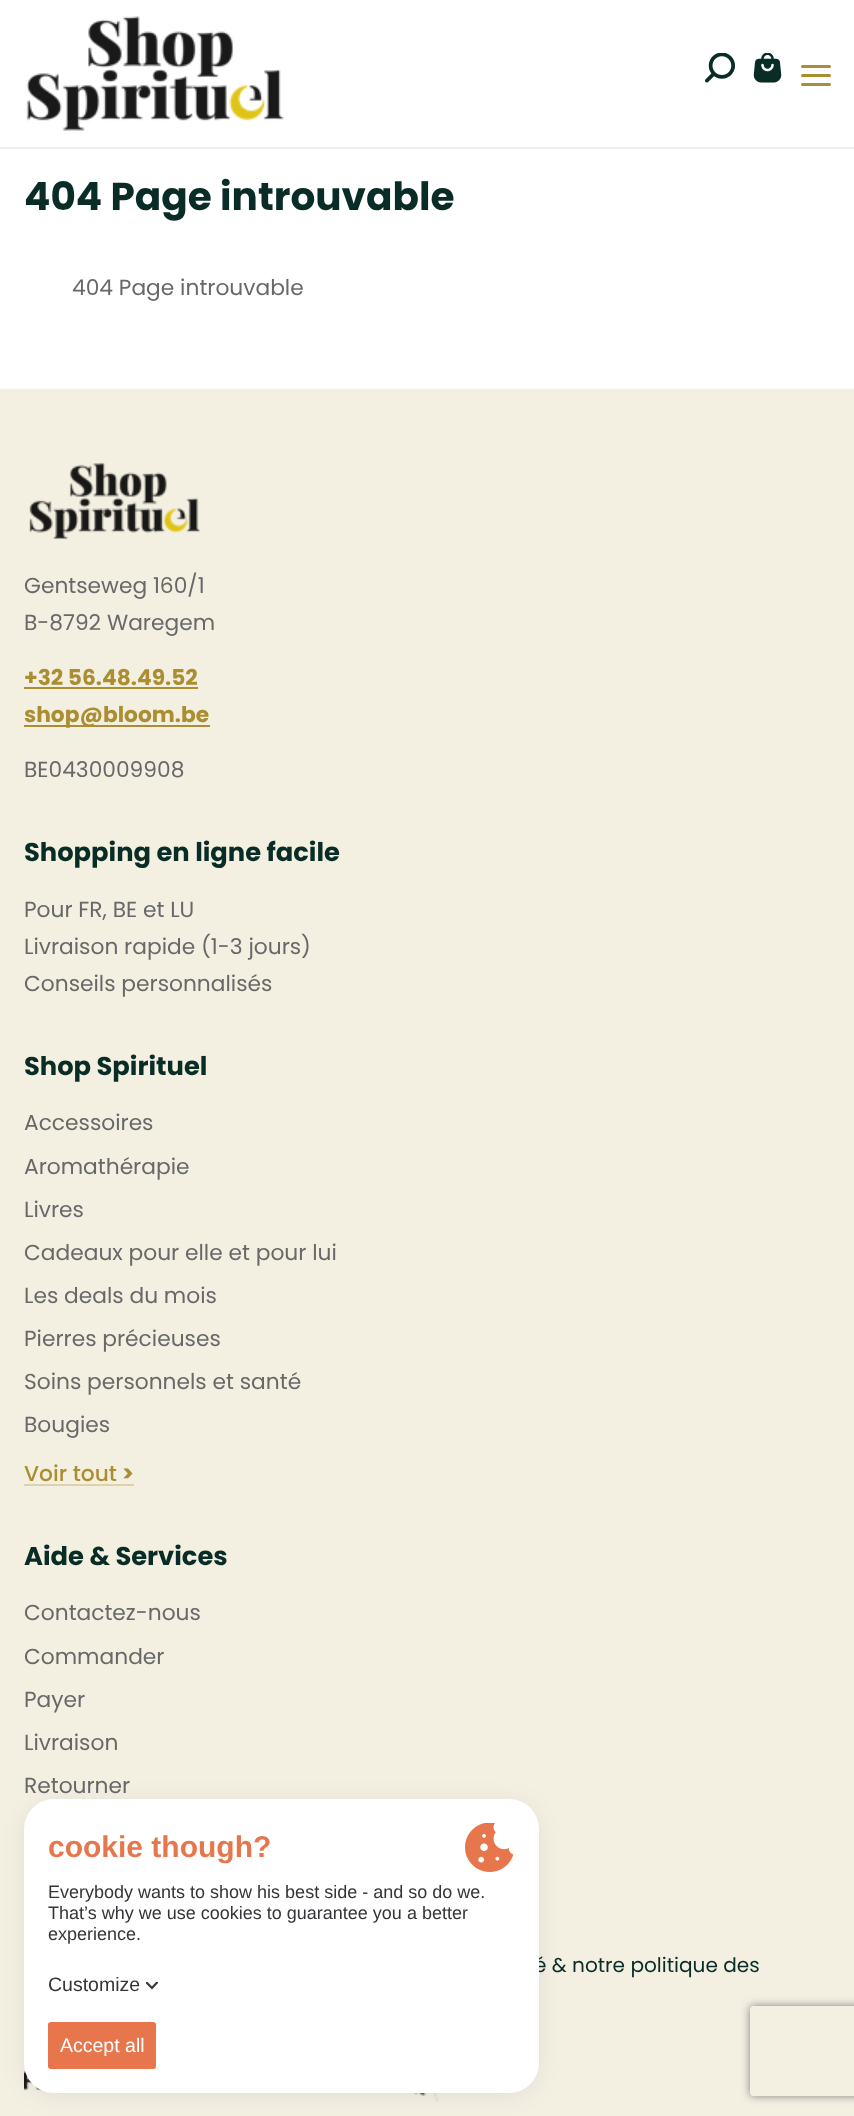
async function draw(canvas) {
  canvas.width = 854
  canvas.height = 2116
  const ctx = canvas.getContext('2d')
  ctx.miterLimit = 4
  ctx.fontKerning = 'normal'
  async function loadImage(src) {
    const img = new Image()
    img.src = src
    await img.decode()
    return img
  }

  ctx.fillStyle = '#fff'
  ctx.fillRect(0, 0, 854, 2116)
  ctx.fillStyle = '#efefef'
  ctx.fillRect(0, 147, 854, 2)
  ctx.drawImage(await loadImage('image0.png'), 26, 16, 258, 115)
  ctx.drawImage(await loadImage('image1.png'), 705, 53, 30, 30)
  ctx.drawImage(await loadImage('image2.png'), 753, 53, 29, 30)
  ctx.fillStyle = '#aa8e31'
  ctx.beginPath()
  ctx.roundRect(801, 83, 30, 3, 1.5)
  ctx.fill()
  ctx.beginPath()
  ctx.roundRect(801, 65, 30, 3, 1.5)
  ctx.fill()
  ctx.beginPath()
  ctx.roundRect(801, 74, 30, 3, 1.5)
  ctx.fill()
  ctx.font = 'bold 39px Poppins'
  ctx.fillStyle = '#092c26'
  ctx.fillText('404 Page introuvable', 24, 210)
  ctx.font = '21.75px Poppins'
  ctx.fillStyle = '#686868'
  ctx.fillText('404 Page introuvable', 72, 295)
  ctx.fillStyle = '#f3efe1'
  ctx.fillRect(0, 389, 854, 1727)
  ctx.drawImage(await loadImage('image3.png'), 29, 463, 171, 77)
  ctx.fillStyle = '#686868'
  ctx.fillText('Gentseweg 160/1', 24, 593)
  ctx.fillText('B-8792 Waregem', 24, 630)
  ctx.font = 'bold 21.75px Poppins'
  ctx.fillStyle = '#aa8e31'
  ctx.fillText('+32 56.48.49.52', 24, 685)
  ctx.fillRect(24, 687, 174, 2)
  ctx.fillRect(24, 725, 186, 2)
  ctx.fillText('shop@bloom.be', 24, 722)
  ctx.font = '21.75px Poppins'
  ctx.fillStyle = '#686868'
  ctx.fillText('BE0430009908', 24, 777)
  ctx.font = 'bold 25.75px Poppins'
  ctx.fillStyle = '#092c26'
  ctx.fillText('Shopping en ligne facile', 24, 861)
  ctx.font = '21.75px Poppins'
  ctx.fillStyle = '#686868'
  ctx.fillText('Pour FR, BE et LU', 24, 917)
  ctx.fillText('Livraison rapide (1-3 jours)', 24, 954)
  ctx.fillText('Conseils personnalisés', 24, 991)
  ctx.font = 'bold 25.75px Poppins'
  ctx.fillStyle = '#092c26'
  ctx.fillText('Shop Spirituel', 24, 1075)
  ctx.font = '21.75px Poppins'
  ctx.fillStyle = '#686868'
  ctx.fillText('Accessoires', 24, 1130)
  ctx.fillText('Aromathérapie', 24, 1174)
  ctx.fillText('Livres', 24, 1217)
  ctx.fillText('Cadeaux pour elle et pour lui', 24, 1260)
  ctx.fillText('Les deals du mois', 24, 1303)
  ctx.fillText('Pierres précieuses', 24, 1346)
  ctx.fillText('Soins personnels et santé', 24, 1389)
  ctx.fillText('Bougies', 24, 1432)
  ctx.font = '500 21.75px Poppins'
  ctx.fillStyle = '#aa8e31'
  ctx.fillText('Voir tout', 24, 1481)
  ctx.font = 'bold 21.75px Poppins'
  ctx.fillText('>', 122, 1481)
  ctx.fillStyle = '#ddd2ac'
  ctx.fillRect(24, 1484, 110, 2)
  ctx.font = 'bold 25.75px Poppins'
  ctx.fillStyle = '#092c26'
  ctx.fillText('Aide & Services', 24, 1565)
  ctx.font = '21.75px Poppins'
  ctx.fillStyle = '#686868'
  ctx.fillText('Contactez-nous', 24, 1620)
  ctx.fillText('Commander', 24, 1664)
  ctx.fillText('Payer', 24, 1707)
  ctx.fillText('Livraison', 24, 1750)
  ctx.fillText('Retourner', 24, 1793)
  ctx.font = '20.1px Poppins'
  ctx.fillStyle = '#092c26'
  ctx.fillText('é & notre politique des', 534, 1972)
  ctx.drawImage(await loadImage('image4.png'), 24, 2071, 415, 31)
  ctx.fillStyle = '#01013f1a'
  ctx.filter = 'blur(14px)'
  ctx.beginPath()
  ctx.roundRect(30, 1808, 503, 282, 24)
  ctx.fill()
  ctx.filter = 'none'
  ctx.fillStyle = '#fff'
  ctx.beginPath()
  ctx.roundRect(24, 1799, 515, 294, 30)
  ctx.fill()
  ctx.font = 'bold 30px Liberation Sans'
  ctx.fillStyle = '#e7764d'
  ctx.fillText('cookie though?', 48, 1857)
  ctx.drawImage(await loadImage('image5.png'), 465, 1823, 49, 49)
  ctx.font = '18px Liberation Sans'
  ctx.fillStyle = '#343538'
  ctx.fillText('Everybody wants to show his best side - and so do we.', 48, 1898)
  ctx.fillText('That’s why we use cookies to guarantee you a better', 48, 1919)
  ctx.fillText('experience.', 48, 1940)
  ctx.font = '19.5px Liberation Sans'
  ctx.fillText('Customize', 48, 1991)
  ctx.save()
  ctx.beginPath()
  ctx.rect(146, 1982, 13, 9)
  ctx.clip()
  ctx.beginPath()
  ctx.moveTo(146.5, 1982.5)
  ctx.lineTo(152, 1988)
  ctx.lineTo(157, 1982.5)
  ctx.strokeStyle = '#343538'
  ctx.lineWidth = 2.1
  ctx.lineCap = 'round'
  ctx.stroke()
  ctx.restore()
  ctx.fillStyle = '#e7764d'
  ctx.beginPath()
  ctx.roundRect(48, 2022, 108, 47, 3)
  ctx.fill()
  ctx.fillStyle = '#fff'
  ctx.fillText('Accept all', 60, 2052)
  ctx.save()
  ctx.beginPath()
  ctx.moveTo(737, 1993)
  ctx.lineTo(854, 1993)
  ctx.lineTo(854, 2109)
  ctx.lineTo(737, 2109)
  ctx.closePath()
  ctx.moveTo(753, 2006)
  ctx.lineTo(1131, 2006)
  ctx.bezierCurveTo(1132.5, 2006, 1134, 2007.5, 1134, 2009)
  ctx.lineTo(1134, 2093)
  ctx.bezierCurveTo(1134, 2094.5, 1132.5, 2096, 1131, 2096)
  ctx.lineTo(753, 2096)
  ctx.bezierCurveTo(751.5, 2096, 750, 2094.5, 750, 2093)
  ctx.lineTo(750, 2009)
  ctx.bezierCurveTo(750, 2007.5, 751.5, 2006, 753, 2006)
  ctx.closePath()
  ctx.clip('evenodd')
  ctx.fillStyle = '#808080'
  ctx.filter = 'blur(4px)'
  ctx.beginPath()
  ctx.roundRect(750, 2006, 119, 90, 3)
  ctx.fill()
  ctx.filter = 'none'
  ctx.restore()
}

draw(document.querySelector('canvas'))
